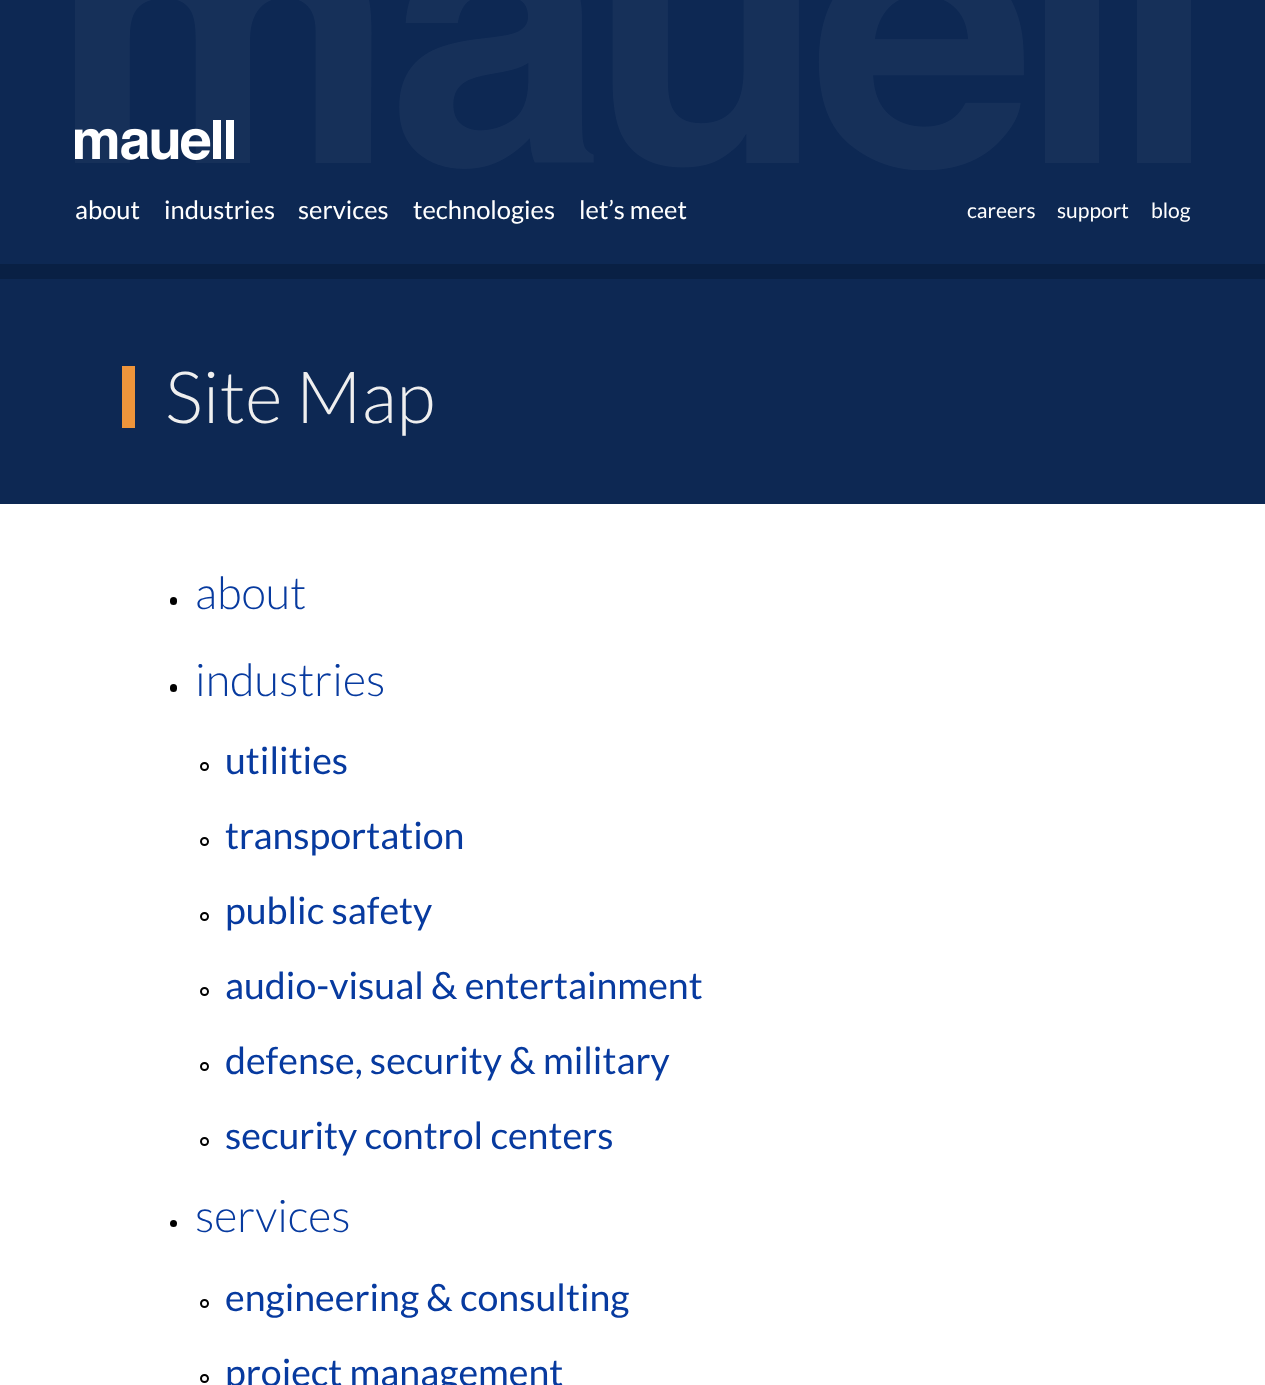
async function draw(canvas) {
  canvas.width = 1265
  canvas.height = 1385
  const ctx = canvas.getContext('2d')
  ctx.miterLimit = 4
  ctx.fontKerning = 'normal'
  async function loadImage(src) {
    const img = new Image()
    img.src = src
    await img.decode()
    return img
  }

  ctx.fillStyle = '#fff'
  ctx.fillRect(0, 0, 1265, 1385)
  ctx.fillStyle = '#0d2853'
  ctx.fillRect(0, 0, 1265, 264)
  ctx.drawImage(await loadImage('image0.png'), 75, 0, 1116, 170)
  ctx.drawImage(await loadImage('image1.png'), 75, 120, 159, 40)
  ctx.font = '25.5px Lato'
  ctx.fillStyle = '#fff'
  ctx.fillText('about', 75, 219)
  ctx.fillText('industries', 164, 219)
  ctx.fillText('services', 298, 219)
  ctx.fillText('technologies', 413, 219)
  ctx.fillText('let’s meet', 579, 219)
  ctx.font = '21px Lato'
  ctx.fillText('careers', 967, 218)
  ctx.fillText('support', 1057, 218)
  ctx.fillText('blog', 1151, 218)
  ctx.fillStyle = '#0d2853'
  ctx.fillRect(0, 279, 1265, 225)
  ctx.fillStyle = '#092044'
  ctx.fillRect(0, 264, 1265, 15)
  ctx.fillStyle = '#ee953b'
  ctx.fillRect(122, 366, 13, 62)
  ctx.font = '300 72px Lato'
  ctx.fillStyle = '#efefef'
  ctx.fillText('Site Map', 165, 423)
  ctx.fillStyle = '#000'
  ctx.beginPath()
  ctx.roundRect(170, 597, 7, 8, 3.5)
  ctx.fill()
  ctx.font = '300 45px Lato'
  ctx.fillStyle = '#073a9f'
  ctx.fillText('about', 195, 609)
  ctx.fillStyle = '#000'
  ctx.beginPath()
  ctx.roundRect(170, 684, 7, 8, 3.5)
  ctx.fill()
  ctx.fillStyle = '#073a9f'
  ctx.fillText('industries', 195, 696)
  ctx.beginPath()
  ctx.arc(204.5, 766.5, 3.5, 0, 2 * Math.PI)
  ctx.strokeStyle = '#000'
  ctx.lineWidth = 2
  ctx.stroke()
  ctx.font = '37.5px Lato'
  ctx.fillText('utilities', 225, 774)
  ctx.beginPath()
  ctx.arc(204.5, 841.5, 3.5, 0, 2 * Math.PI)
  ctx.stroke()
  ctx.fillText('transportation', 225, 849)
  ctx.beginPath()
  ctx.arc(204.5, 916.5, 3.5, 0, 2 * Math.PI)
  ctx.stroke()
  ctx.fillText('public safety', 225, 924)
  ctx.beginPath()
  ctx.arc(204.5, 991.5, 3.5, 0, 2 * Math.PI)
  ctx.stroke()
  ctx.fillText('audio-visual & entertainment', 225, 999)
  ctx.beginPath()
  ctx.arc(204.5, 1066.5, 3.5, 0, 2 * Math.PI)
  ctx.stroke()
  ctx.fillText('defense, security & military', 225, 1074)
  ctx.beginPath()
  ctx.arc(204.5, 1141.5, 3.5, 0, 2 * Math.PI)
  ctx.stroke()
  ctx.fillText('security control centers', 225, 1149)
  ctx.fillStyle = '#000'
  ctx.beginPath()
  ctx.arc(173.5, 1223.5, 3.5, 0, 2 * Math.PI)
  ctx.fill()
  ctx.font = '300 45px Lato'
  ctx.fillStyle = '#073a9f'
  ctx.fillText('services', 195, 1232)
  ctx.beginPath()
  ctx.arc(204.5, 1303.5, 3.5, 0, 2 * Math.PI)
  ctx.stroke()
  ctx.font = '37.5px Lato'
  ctx.fillText('engineering & consulting', 225, 1311)
  ctx.beginPath()
  ctx.arc(204.5, 1378.5, 3.5, 0, 2 * Math.PI)
  ctx.stroke()
  ctx.fillText('project management', 225, 1386)
}

draw(document.querySelector('canvas'))
